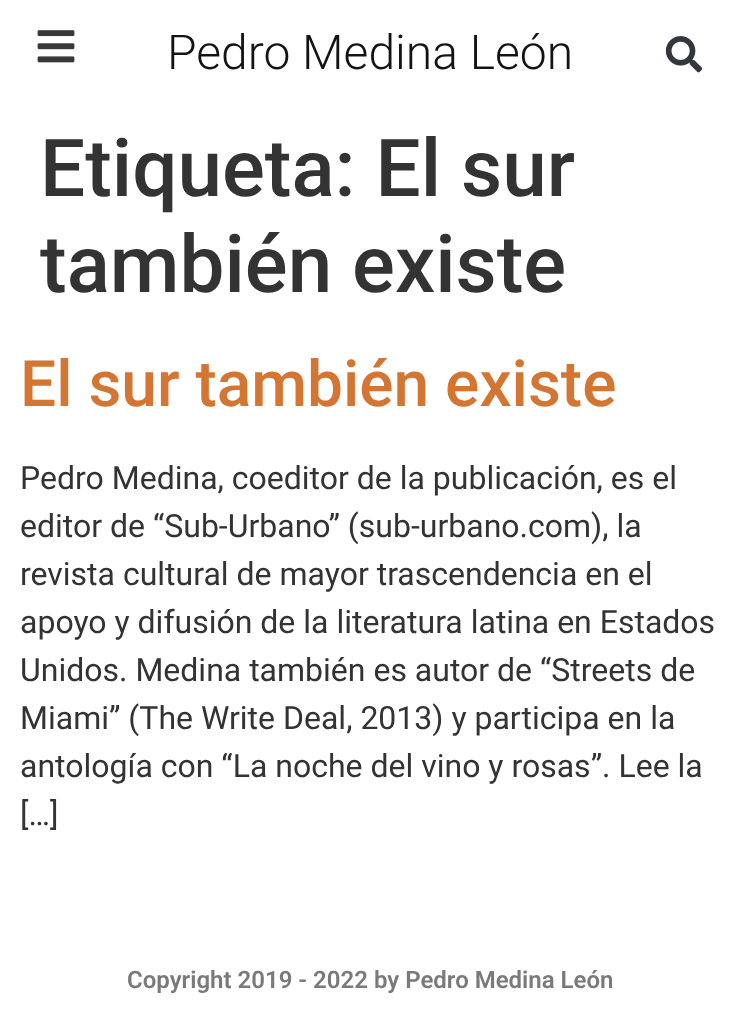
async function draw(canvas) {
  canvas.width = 740
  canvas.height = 1035
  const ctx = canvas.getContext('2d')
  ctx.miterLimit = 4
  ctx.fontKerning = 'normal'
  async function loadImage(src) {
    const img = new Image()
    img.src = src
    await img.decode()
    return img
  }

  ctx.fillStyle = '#fff'
  ctx.fillRect(0, 0, 740, 1035)
  ctx.drawImage(await loadImage('image0.png'), 37, 30, 38, 33)
  ctx.font = '300 48px Roboto'
  ctx.fillStyle = '#131313'
  ctx.fillText('Pedro Medina León', 167, 69)
  ctx.drawImage(await loadImage('image1.png'), 665, 36, 38, 37)
  ctx.font = '500 80px Roboto'
  ctx.fillStyle = '#333'
  ctx.fillText('Etiqueta: El sur', 40, 196)
  ctx.fillText('también existe', 40, 292)
  ctx.font = '500 64px Roboto'
  ctx.fillStyle = '#d37633'
  ctx.fillText('El sur también existe', 20, 406)
  ctx.font = '32px Roboto'
  ctx.fillStyle = '#333'
  ctx.fillText('Pedro Medina, coeditor de la publicación, es el', 20, 489)
  ctx.fillText('editor de “Sub-Urbano” (sub-urbano.com), la', 20, 537)
  ctx.fillText('revista cultural de mayor trascendencia en el', 20, 585)
  ctx.fillText('apoyo y difusión de la literatura latina en Estados', 20, 633)
  ctx.fillText('Unidos. Medina también es autor de “Streets de', 20, 681)
  ctx.fillText('Miami” (The Write Deal, 2013) y participa en la', 20, 729)
  ctx.fillText('antología con “La noche del vino y rosas”. Lee la', 20, 777)
  ctx.fillText('[…]', 20, 825)
  ctx.font = '600 24px Roboto'
  ctx.fillStyle = '#7a7a7a'
  ctx.fillText('Copyright 2019 - 2022 by Pedro Medina León', 127, 988)
}

draw(document.querySelector('canvas'))
